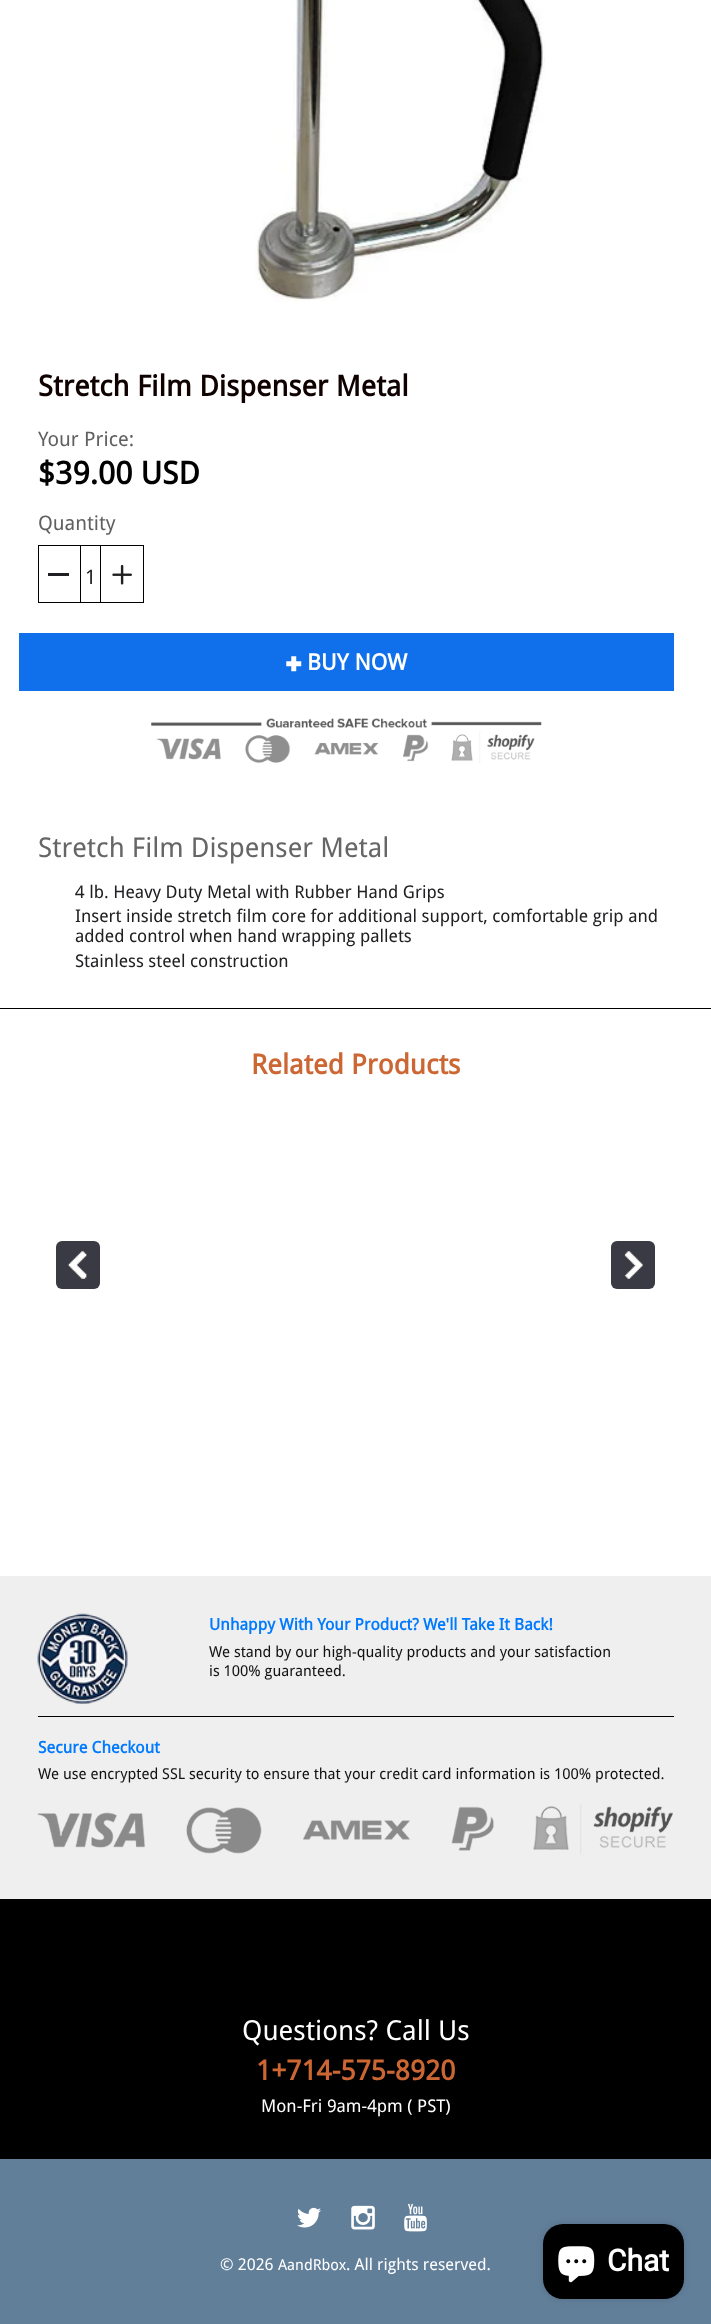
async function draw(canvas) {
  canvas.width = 711
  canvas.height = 2324
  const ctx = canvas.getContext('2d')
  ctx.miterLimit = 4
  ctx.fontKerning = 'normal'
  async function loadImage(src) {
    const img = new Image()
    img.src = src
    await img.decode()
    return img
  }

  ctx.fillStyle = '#fff'
  ctx.fillRect(0, 0, 711, 2324)
  ctx.drawImage(await loadImage('image0.png'), 255, 0, 290, 302)
  ctx.font = 'bold 28.75px Droid Sans'
  ctx.fillStyle = '#100101'
  ctx.fillText('Stretch Film Dispenser Metal', 38, 396)
  ctx.font = '20px Droid Sans'
  ctx.fillStyle = '#606060'
  ctx.fillText('Your Price:', 38, 446)
  ctx.font = 'bold 31.25px Droid Sans'
  ctx.fillStyle = '#000'
  ctx.fillText('$39.00 USD', 38, 484)
  ctx.font = '20px Droid Sans'
  ctx.fillStyle = '#606060'
  ctx.fillText('Quantity', 38, 530)
  ctx.strokeStyle = '#000'
  ctx.strokeRect(38.5, 545.5, 105, 57)
  ctx.fillStyle = '#000'
  ctx.fillRect(80, 545, 1, 58)
  ctx.fillStyle = '#202023'
  ctx.fillRect(48, 573, 21, 3)
  ctx.fillText('1', 85, 584)
  ctx.fillStyle = '#000'
  ctx.fillRect(100, 545, 1, 58)
  ctx.drawImage(await loadImage('image1.png'), 112, 564, 20, 21)
  ctx.fillStyle = '#106fea'
  ctx.fillRect(19, 633, 655, 58)
  ctx.drawImage(await loadImage('image2.png'), 286, 656, 16, 16)
  ctx.font = 'bold 22.5px Droid Sans'
  ctx.fillStyle = '#fff'
  ctx.fillText('BUY NOW', 307, 670)
  ctx.drawImage(await loadImage('image3.png'), 151, 718, 391, 46)
  ctx.font = '27.25px Droid Sans'
  ctx.fillStyle = '#666'
  ctx.fillText('Stretch Film Dispenser Metal', 38, 857)
  ctx.font = '17.5px Droid Sans'
  ctx.fillStyle = '#202023'
  ctx.fillText('4 lb. Heavy Duty Metal with Rubber Hand Grips', 75, 898)
  ctx.fillText('Insert inside stretch film core for additional support, comfortable grip and', 75, 922)
  ctx.fillText('added control when hand wrapping pallets', 75, 942)
  ctx.fillText('Stainless steel construction', 75, 967)
  ctx.fillStyle = '#000'
  ctx.fillRect(0, 1008, 711, 1)
  ctx.font = 'bold 27.5px Droid Sans'
  ctx.fillStyle = '#c63'
  ctx.fillText('Related Products', 251, 1074)
  ctx.fillStyle = '#3a3a44'
  ctx.beginPath()
  ctx.roundRect(56, 1241, 44, 48, 6)
  ctx.fill()
  ctx.drawImage(await loadImage('image4.png'), 68, 1251, 19, 28)
  ctx.beginPath()
  ctx.roundRect(611, 1241, 44, 48, 6)
  ctx.fill()
  ctx.drawImage(await loadImage('image5.png'), 624, 1251, 19, 28)
  ctx.fillStyle = '#efefef'
  ctx.fillRect(0, 1576, 711, 323)
  ctx.drawImage(await loadImage('image6.png'), 37, 1613, 91, 91)
  ctx.font = 'bold 16.25px Droid Sans'
  ctx.fillStyle = '#007aff'
  ctx.fillText('Unhappy With Your Product? We\'ll Take It Back!', 209, 1630)
  ctx.font = '15px Droid Sans'
  ctx.fillStyle = '#121212'
  ctx.fillText('We stand by our high-quality products and your satisfaction', 209, 1657)
  ctx.fillText('is 100% guaranteed.', 209, 1676)
  ctx.fillStyle = '#000'
  ctx.fillRect(38, 1716, 636, 1)
  ctx.font = 'bold 16.25px Droid Sans'
  ctx.fillStyle = '#007aff'
  ctx.fillText('Secure Checkout', 38, 1753)
  ctx.font = '15px Droid Sans'
  ctx.fillStyle = '#121212'
  ctx.fillText('We use encrypted SSL security to ensure that your credit card information is 100% protected.', 38, 1779)
  ctx.drawImage(await loadImage('image7.png'), 37, 1804, 636, 52)
  ctx.fillStyle = '#000'
  ctx.fillRect(0, 1899, 711, 260)
  ctx.font = '27.5px Droid Sans'
  ctx.fillStyle = '#fff'
  ctx.fillText('Questions? Call Us', 242, 2040)
  ctx.font = 'bold 27.5px Droid Sans'
  ctx.fillStyle = '#c63'
  ctx.fillText('1+714-575-8920', 256, 2080)
  ctx.font = '17.5px Droid Sans'
  ctx.fillStyle = '#fff'
  ctx.fillText('Mon-Fri 9am-4pm ( PST)', 261, 2112)
  ctx.fillStyle = '#627f9a'
  ctx.fillRect(0, 2159, 711, 165)
  ctx.drawImage(await loadImage('image8.png'), 297, 2207, 24, 21)
  ctx.drawImage(await loadImage('image9.png'), 351, 2205, 24, 25)
  ctx.drawImage(await loadImage('image10.png'), 404, 2203, 23, 29)
  ctx.font = '16.25px Droid Sans'
  ctx.fillStyle = '#fff'
  ctx.fillText('© 2026', 220, 2270)
  ctx.font = '15px Droid Sans'
  ctx.fillText('AandRbox', 278, 2270)
  ctx.font = '16.25px Droid Sans'
  ctx.fillText('. All rights reserved.', 346, 2270)
  ctx.fillStyle = '#00000026'
  ctx.filter = 'blur(3px)'
  ctx.beginPath()
  ctx.roundRect(543, 2224, 141, 75, 20)
  ctx.fill()
  ctx.filter = 'none'
  ctx.fillStyle = '#000'
  ctx.beginPath()
  ctx.roundRect(543, 2224, 141, 75, 20)
  ctx.fill()
  ctx.drawImage(await loadImage('image11.png'), 558, 2246, 37, 37)
  ctx.font = 'bold 30px Roboto'
  ctx.fillStyle = '#fff'
  ctx.fillText('Chat', 607, 2271)
}

draw(document.querySelector('canvas'))
